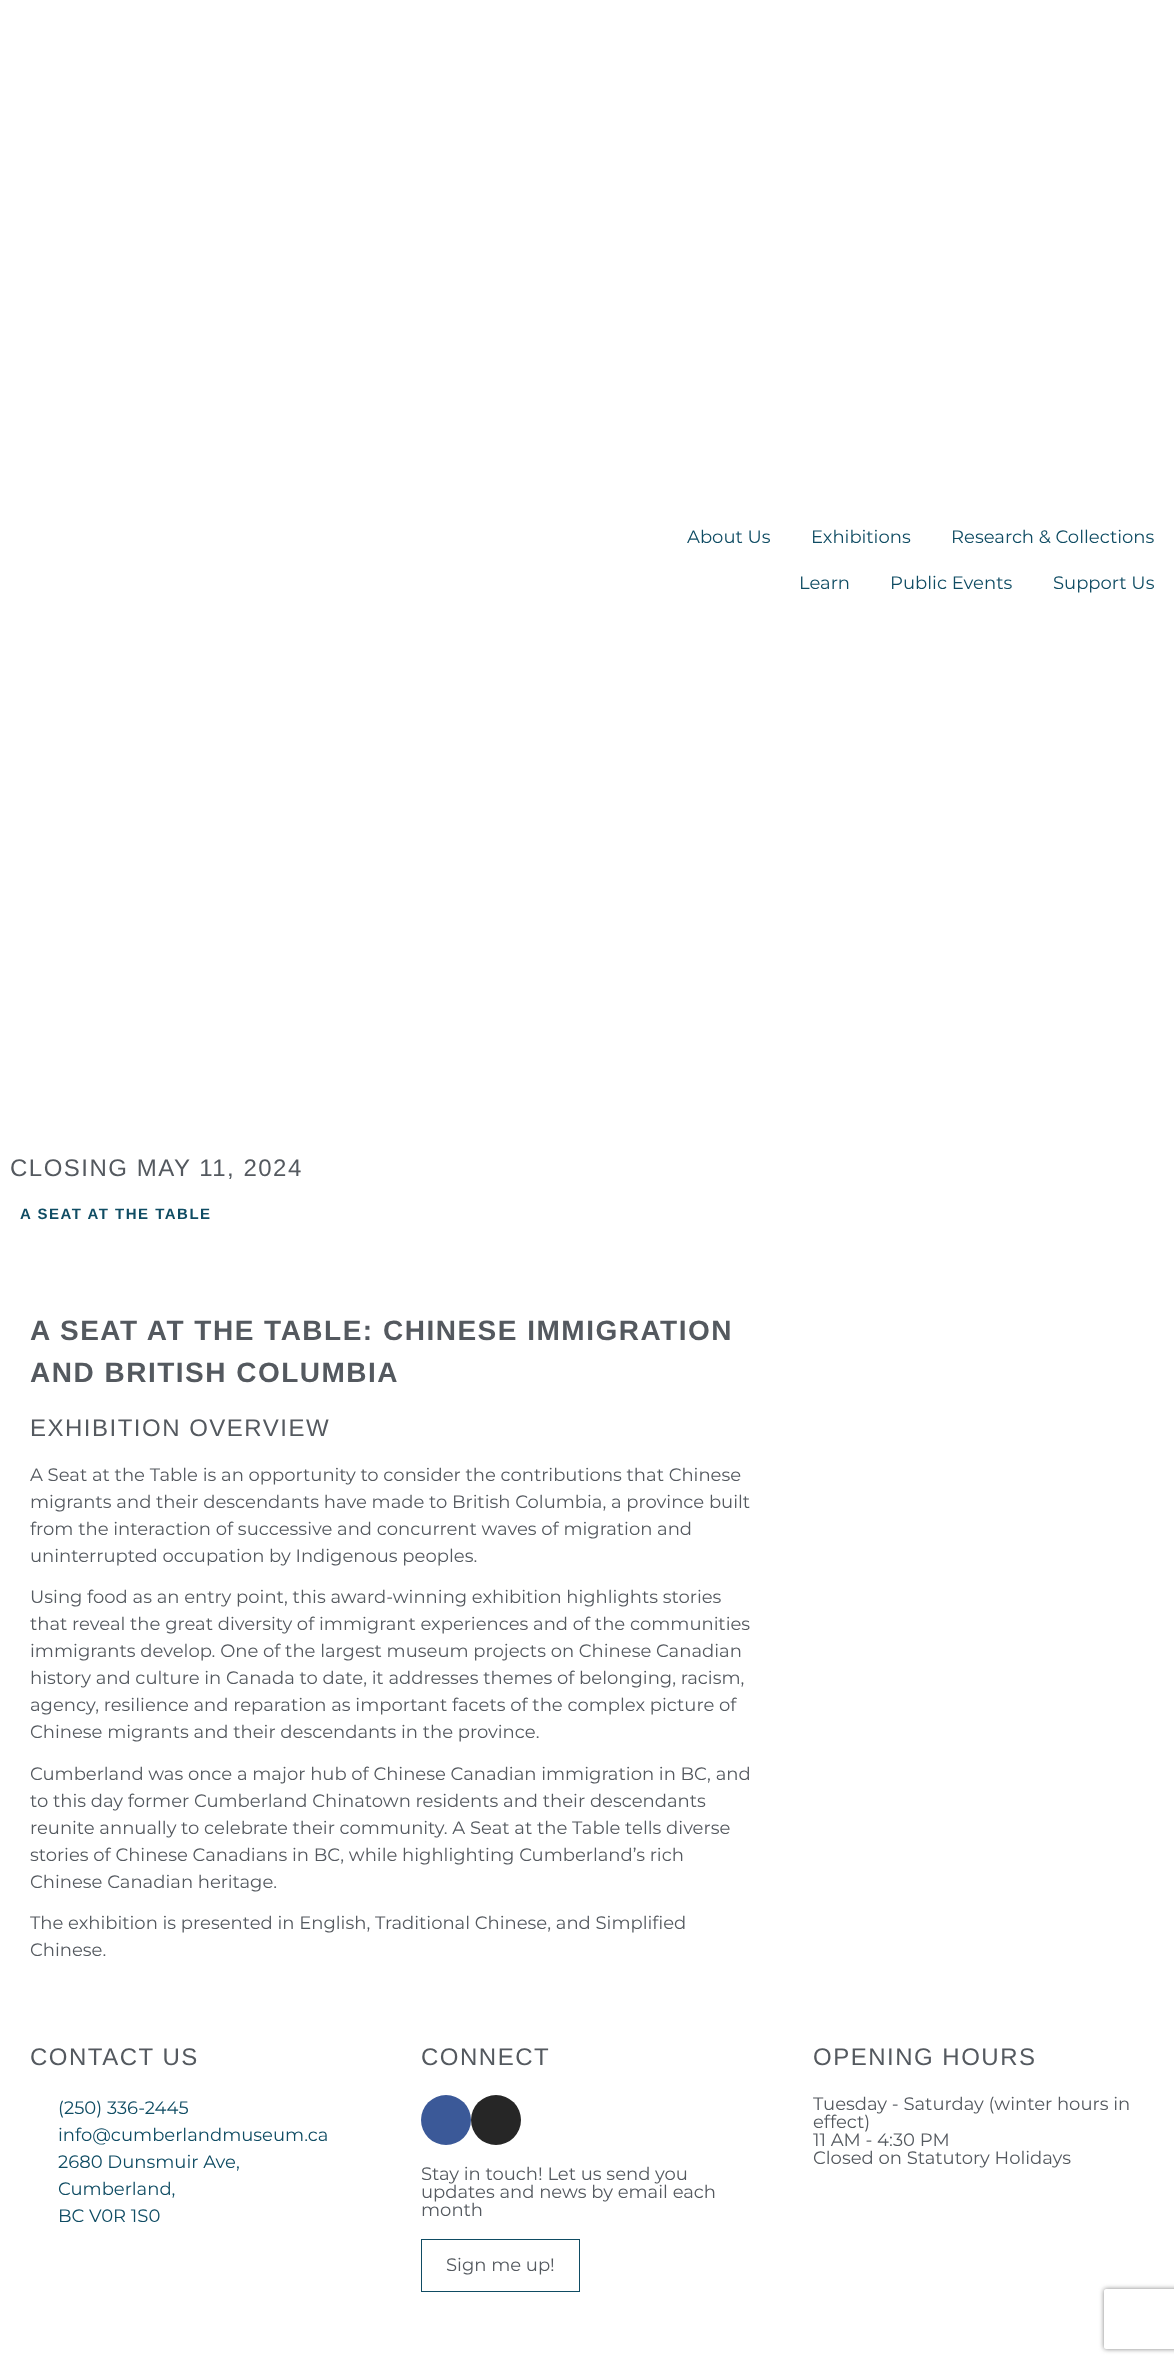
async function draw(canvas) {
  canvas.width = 1174
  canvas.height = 2363
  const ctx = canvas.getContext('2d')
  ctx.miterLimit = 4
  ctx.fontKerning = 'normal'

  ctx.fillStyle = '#fff'
  ctx.fillRect(0, 0, 1174, 2363)
  ctx.font = '18px Montserrat'
  ctx.fillStyle = '#0f4c63'
  ctx.fillText('About Us', 687, 543)
  ctx.fillText('Exhibitions', 811, 543)
  ctx.fillText('Research & Collections', 951, 543)
  ctx.fillText('Learn', 799, 589)
  ctx.fillText('Public Events', 890, 589)
  ctx.fillText('Support Us', 1053, 589)
  ctx.letterSpacing = '1.5px'
  ctx.font = '24px Liberation Sans'
  ctx.fillStyle = '#54595f'
  ctx.fillText('CLOSING MAY 11, 2024', 10, 1176)
  ctx.font = 'bold 15px Liberation Sans'
  ctx.fillStyle = '#0f4c63'
  ctx.fillText('A SEAT AT THE TABLE', 20, 1219)
  ctx.font = 'bold 28px Liberation Sans'
  ctx.fillStyle = '#54595f'
  ctx.fillText('A SEAT AT THE TABLE: CHINESE IMMIGRATION', 30, 1340)
  ctx.fillText('AND BRITISH COLUMBIA', 30, 1382)
  ctx.font = '24px Liberation Sans'
  ctx.fillText('EXHIBITION OVERVIEW', 30, 1436)
  ctx.letterSpacing = '0px'
  ctx.font = '18px Montserrat'
  ctx.fillText('A Seat at the Table is an opportunity to consider the contributions that Chinese', 30, 1481)
  ctx.fillText('migrants and their descendants have made to British Columbia, a province built', 30, 1508)
  ctx.fillText('from the interaction of successive and concurrent waves of migration and', 30, 1535)
  ctx.fillText('uninterrupted occupation by Indigenous peoples.', 30, 1562)
  ctx.fillText('Using food as an entry point, this award-winning exhibition highlights stories', 30, 1603)
  ctx.fillText('that reveal the great diversity of immigrant experiences and of the communities', 30, 1630)
  ctx.fillText('immigrants develop. One of the largest museum projects on Chinese Canadian', 30, 1657)
  ctx.fillText('history and culture in Canada to date, it addresses themes of belonging, racism,', 30, 1684)
  ctx.fillText('agency, resilience and reparation as important facets of the complex picture of', 30, 1711)
  ctx.fillText('Chinese migrants and their descendants in the province.', 30, 1738)
  ctx.fillText('Cumberland was once a major hub of Chinese Canadian immigration in BC, and', 30, 1780)
  ctx.fillText('to this day former Cumberland Chinatown residents and their descendants', 30, 1807)
  ctx.fillText('reunite annually to celebrate their community. A Seat at the Table tells diverse', 30, 1834)
  ctx.fillText('stories of Chinese Canadians in BC, while highlighting Cumberland’s rich', 30, 1861)
  ctx.fillText('Chinese Canadian heritage.', 30, 1888)
  ctx.fillText('The exhibition is presented in English, Traditional Chinese, and Simplified', 30, 1929)
  ctx.fillText('Chinese.', 30, 1956)
  ctx.letterSpacing = '1.5px'
  ctx.font = '24px Liberation Sans'
  ctx.fillText('CONTACT US', 30, 2065)
  ctx.letterSpacing = '0px'
  ctx.font = '18px Montserrat'
  ctx.fillStyle = '#0f4c63'
  ctx.fillText('(250) 336-2445', 58, 2114)
  ctx.fillText('info@cumberlandmuseum.ca', 58, 2141)
  ctx.fillText('2680 Dunsmuir Ave,', 58, 2168)
  ctx.fillText('Cumberland,', 58, 2195)
  ctx.fillText('BC V0R 1S0', 58, 2222)
  ctx.letterSpacing = '1.5px'
  ctx.font = '24px Liberation Sans'
  ctx.fillStyle = '#54595f'
  ctx.fillText('CONNECT', 421, 2065)
  ctx.fillStyle = '#3b5998'
  ctx.beginPath()
  ctx.arc(446, 2120, 25, 0, 2 * Math.PI)
  ctx.fill()
  ctx.fillStyle = '#262626'
  ctx.beginPath()
  ctx.arc(496, 2120, 25, 0, 2 * Math.PI)
  ctx.fill()
  ctx.letterSpacing = '0px'
  ctx.font = '18px Montserrat'
  ctx.fillStyle = '#54595f'
  ctx.fillText('Stay in touch! Let us send you', 421, 2180)
  ctx.fillText('updates and news by email each', 421, 2198)
  ctx.fillText('month', 421, 2216)
  ctx.strokeStyle = '#0f4c63'
  ctx.strokeRect(421.5, 2239.5, 158, 52)
  ctx.fillText('Sign me up!', 446, 2271)
  ctx.letterSpacing = '1.5px'
  ctx.font = '24px Liberation Sans'
  ctx.fillText('OPENING HOURS', 813, 2065)
  ctx.letterSpacing = '0px'
  ctx.font = '18px Montserrat'
  ctx.fillText('Tuesday - Saturday (winter hours in', 813, 2110)
  ctx.fillText('effect)', 813, 2128)
  ctx.fillText('11 AM - 4:30 PM', 813, 2146)
  ctx.fillText('Closed on Statutory Holidays', 813, 2164)
  ctx.save()
  ctx.beginPath()
  ctx.moveTo(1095, 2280)
  ctx.lineTo(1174, 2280)
  ctx.lineTo(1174, 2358)
  ctx.lineTo(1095, 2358)
  ctx.closePath()
  ctx.moveTo(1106, 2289)
  ctx.lineTo(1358, 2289)
  ctx.bezierCurveTo(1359, 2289, 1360, 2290, 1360, 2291)
  ctx.lineTo(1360, 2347)
  ctx.bezierCurveTo(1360, 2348, 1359, 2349, 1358, 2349)
  ctx.lineTo(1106, 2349)
  ctx.bezierCurveTo(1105, 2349, 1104, 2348, 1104, 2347)
  ctx.lineTo(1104, 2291)
  ctx.bezierCurveTo(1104, 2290, 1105, 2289, 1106, 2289)
  ctx.closePath()
  ctx.clip('evenodd')
  ctx.fillStyle = '#808080'
  ctx.filter = 'blur(2.5px)'
  ctx.beginPath()
  ctx.roundRect(1104, 2289, 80, 60, 2)
  ctx.fill()
  ctx.filter = 'none'
  ctx.restore()
}

draw(document.querySelector('canvas'))
